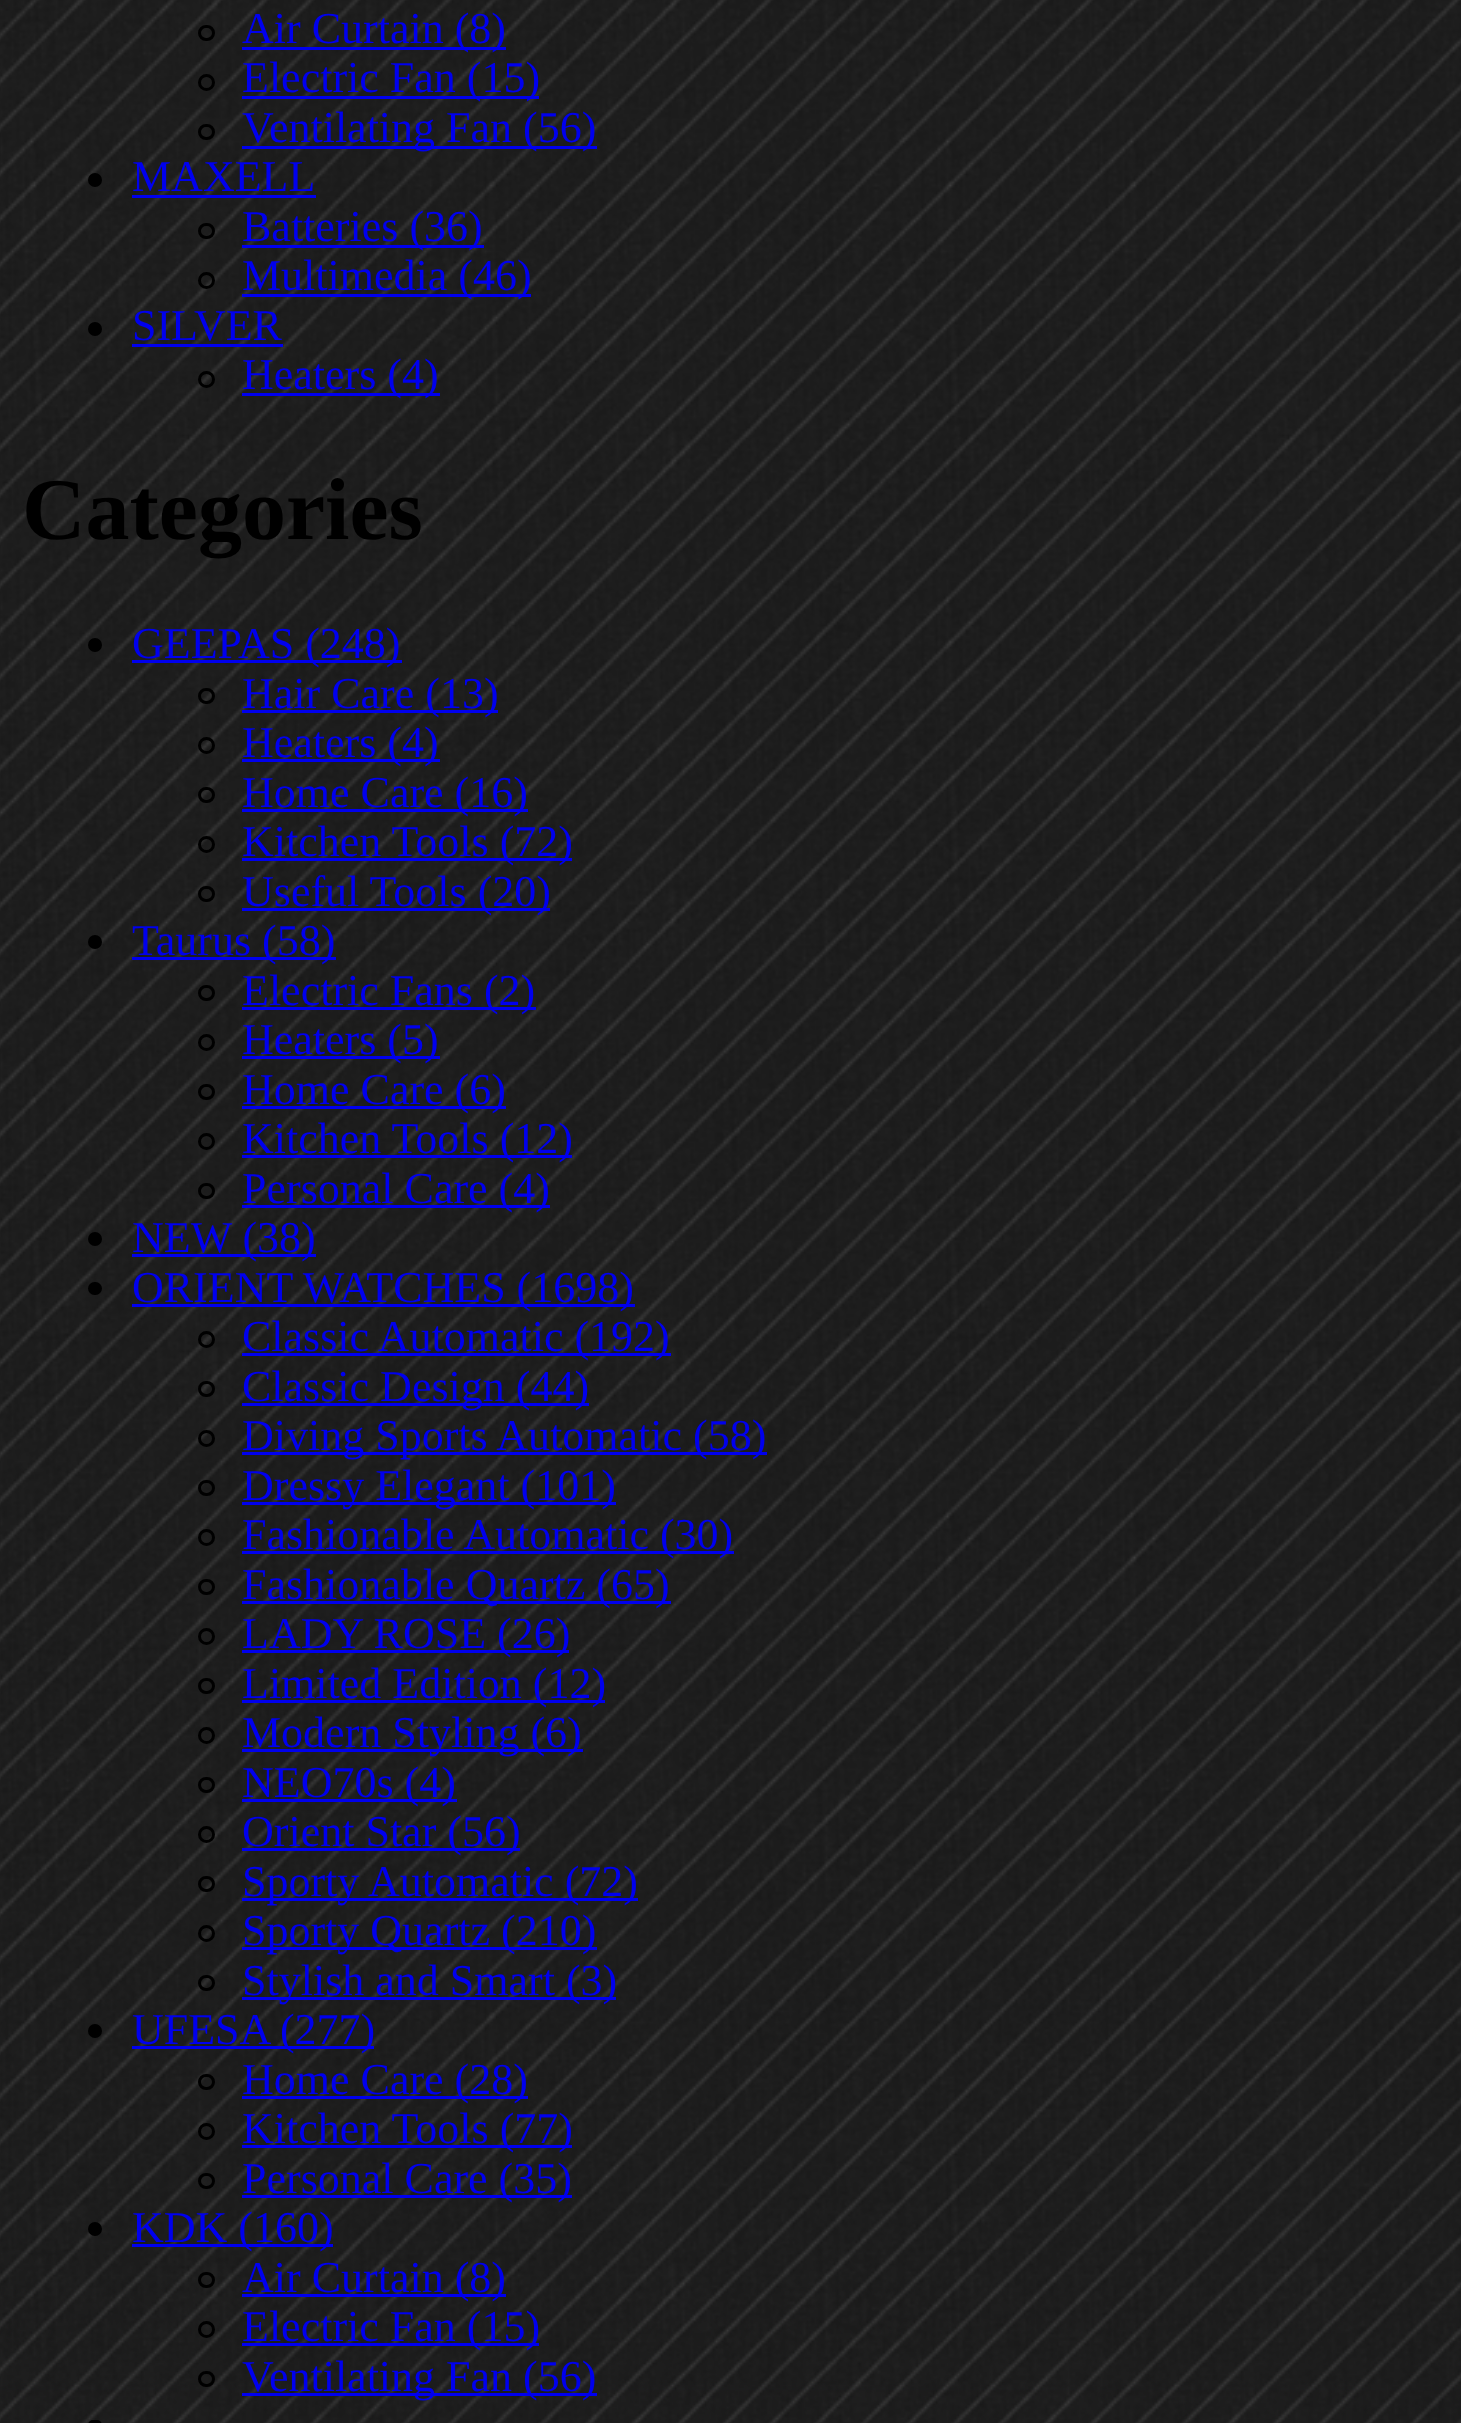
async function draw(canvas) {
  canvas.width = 1461
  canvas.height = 2423
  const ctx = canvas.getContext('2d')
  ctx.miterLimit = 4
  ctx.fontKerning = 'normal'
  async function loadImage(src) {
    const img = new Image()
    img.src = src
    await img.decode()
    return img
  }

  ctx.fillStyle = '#fff'
  ctx.fillRect(0, 0, 1461, 2423)
  ctx.drawImage(await loadImage('image0.png'), 0, 0, 1461, 2423)
  ctx.beginPath()
  ctx.roundRect(199.5, 26.5, 14, 13, 6.5)
  ctx.strokeStyle = '#000'
  ctx.lineWidth = 3
  ctx.stroke()
  ctx.fillStyle = '#00e'
  ctx.fillRect(242, 47, 264, 3)
  ctx.font = '44px Liberation Serif'
  ctx.fillText('Air Curtain (8)', 242, 43)
  ctx.beginPath()
  ctx.arc(206.5, 82.5, 7, 0, 2 * Math.PI)
  ctx.stroke()
  ctx.fillRect(242, 96, 297, 3)
  ctx.fillText('Electric Fan (15)', 242, 92)
  ctx.beginPath()
  ctx.roundRect(199.5, 125.5, 14, 13, 6.5)
  ctx.stroke()
  ctx.fillRect(242, 146, 355, 3)
  ctx.fillText('Ventilating Fan (56)', 242, 142)
  ctx.fillStyle = '#000'
  ctx.beginPath()
  ctx.arc(95, 180, 7, 0, 2 * Math.PI)
  ctx.fill()
  ctx.fillStyle = '#00e'
  ctx.fillText('MAXELL', 132, 191)
  ctx.fillRect(132, 195, 184, 3)
  ctx.beginPath()
  ctx.roundRect(199.5, 224.5, 14, 13, 6.5)
  ctx.stroke()
  ctx.fillRect(242, 245, 242, 3)
  ctx.fillText('Batteries (36)', 242, 241)
  ctx.beginPath()
  ctx.arc(206.5, 280.5, 7, 0, 2 * Math.PI)
  ctx.stroke()
  ctx.fillRect(242, 294, 289, 3)
  ctx.fillText('Multimedia (46)', 242, 290)
  ctx.fillStyle = '#000'
  ctx.beginPath()
  ctx.arc(95, 329, 7, 0, 2 * Math.PI)
  ctx.fill()
  ctx.fillStyle = '#00e'
  ctx.fillText('SILVER', 132, 340)
  ctx.fillRect(132, 344, 151, 3)
  ctx.beginPath()
  ctx.arc(206.5, 379.5, 7, 0, 2 * Math.PI)
  ctx.stroke()
  ctx.fillRect(242, 393, 198, 3)
  ctx.fillText('Heaters (4)', 242, 389)
  ctx.font = 'bold 88px Liberation Serif'
  ctx.fillStyle = '#000'
  ctx.fillText('Categories', 22, 539)
  ctx.beginPath()
  ctx.arc(95, 645, 7, 0, 2 * Math.PI)
  ctx.fill()
  ctx.fillStyle = '#00e'
  ctx.fillRect(132, 660, 270, 3)
  ctx.font = '44px Liberation Serif'
  ctx.fillText('GEEPAS (248)', 132, 658)
  ctx.beginPath()
  ctx.roundRect(199.5, 689.5, 14, 13, 6.5)
  ctx.stroke()
  ctx.fillRect(242, 710, 256, 3)
  ctx.fillText('Hair Care (13)', 242, 708)
  ctx.beginPath()
  ctx.arc(206.5, 745.5, 7, 0, 2 * Math.PI)
  ctx.stroke()
  ctx.fillRect(242, 759, 198, 3)
  ctx.fillText('Heaters (4)', 242, 757)
  ctx.beginPath()
  ctx.roundRect(199.5, 788.5, 14, 13, 6.5)
  ctx.stroke()
  ctx.fillRect(242, 809, 286, 3)
  ctx.fillText('Home Care (16)', 242, 807)
  ctx.beginPath()
  ctx.arc(206.5, 844.5, 7, 0, 2 * Math.PI)
  ctx.stroke()
  ctx.fillRect(242, 858, 330, 3)
  ctx.fillText('Kitchen Tools (72)', 242, 856)
  ctx.beginPath()
  ctx.roundRect(199.5, 887.5, 14, 13, 6.5)
  ctx.stroke()
  ctx.fillRect(242, 908, 308, 3)
  ctx.fillText('Useful Tools (20)', 242, 906)
  ctx.fillStyle = '#000'
  ctx.beginPath()
  ctx.arc(95, 942, 7, 0, 2 * Math.PI)
  ctx.fill()
  ctx.fillStyle = '#00e'
  ctx.fillRect(132, 957, 204, 3)
  ctx.fillText('Taurus (58)', 132, 955)
  ctx.beginPath()
  ctx.roundRect(199.5, 986.5, 14, 13, 6.5)
  ctx.stroke()
  ctx.fillRect(242, 1007, 294, 3)
  ctx.fillText('Electric Fans (2)', 242, 1005)
  ctx.beginPath()
  ctx.arc(206.5, 1042.5, 7, 0, 2 * Math.PI)
  ctx.stroke()
  ctx.fillRect(242, 1056, 198, 3)
  ctx.fillText('Heaters (5)', 242, 1054)
  ctx.beginPath()
  ctx.roundRect(199.5, 1085.5, 14, 13, 6.5)
  ctx.stroke()
  ctx.fillRect(242, 1106, 264, 3)
  ctx.fillText('Home Care (6)', 242, 1104)
  ctx.beginPath()
  ctx.arc(206.5, 1141.5, 7, 0, 2 * Math.PI)
  ctx.stroke()
  ctx.fillRect(242, 1155, 330, 3)
  ctx.fillText('Kitchen Tools (12)', 242, 1153)
  ctx.beginPath()
  ctx.roundRect(199.5, 1184.5, 14, 13, 6.5)
  ctx.stroke()
  ctx.fillRect(242, 1205, 308, 3)
  ctx.fillText('Personal Care (4)', 242, 1203)
  ctx.fillStyle = '#000'
  ctx.beginPath()
  ctx.arc(95, 1239, 7, 0, 2 * Math.PI)
  ctx.fill()
  ctx.fillStyle = '#00e'
  ctx.fillRect(132, 1254, 184, 3)
  ctx.fillText('NEW (38)', 132, 1252)
  ctx.fillStyle = '#000'
  ctx.beginPath()
  ctx.roundRect(88, 1282, 14, 13, 6.5)
  ctx.fill()
  ctx.fillStyle = '#00e'
  ctx.fillRect(132, 1304, 503, 3)
  ctx.fillText('ORIENT WATCHES (1698)', 132, 1302)
  ctx.beginPath()
  ctx.arc(206.5, 1339.5, 7, 0, 2 * Math.PI)
  ctx.stroke()
  ctx.fillRect(242, 1353, 429, 3)
  ctx.fillText('Classic Automatic (192)', 242, 1351)
  ctx.beginPath()
  ctx.roundRect(199.5, 1382.5, 14, 13, 6.5)
  ctx.stroke()
  ctx.fillRect(242, 1403, 347, 3)
  ctx.fillText('Classic Design (44)', 242, 1401)
  ctx.beginPath()
  ctx.arc(206.5, 1438.5, 7, 0, 2 * Math.PI)
  ctx.stroke()
  ctx.fillRect(242, 1452, 525, 3)
  ctx.fillText('Diving Sports Automatic (58)', 242, 1450)
  ctx.beginPath()
  ctx.roundRect(199.5, 1481.5, 14, 13, 6.5)
  ctx.stroke()
  ctx.fillRect(242, 1502, 374, 3)
  ctx.fillText('Dressy Elegant (101)', 242, 1500)
  ctx.beginPath()
  ctx.arc(206.5, 1537.5, 7, 0, 2 * Math.PI)
  ctx.stroke()
  ctx.fillRect(242, 1551, 492, 3)
  ctx.fillText('Fashionable Automatic (30)', 242, 1549)
  ctx.beginPath()
  ctx.roundRect(199.5, 1580.5, 14, 13, 6.5)
  ctx.stroke()
  ctx.fillRect(242, 1601, 429, 3)
  ctx.fillText('Fashionable Quartz (65)', 242, 1599)
  ctx.beginPath()
  ctx.arc(206.5, 1636.5, 7, 0, 2 * Math.PI)
  ctx.stroke()
  ctx.fillRect(242, 1650, 327, 3)
  ctx.fillText('LADY ROSE (26)', 242, 1648)
  ctx.beginPath()
  ctx.roundRect(199.5, 1679.5, 14, 13, 6.5)
  ctx.stroke()
  ctx.fillRect(242, 1700, 363, 3)
  ctx.fillText('Limited Edition (12)', 242, 1698)
  ctx.beginPath()
  ctx.arc(206.5, 1735.5, 7, 0, 2 * Math.PI)
  ctx.stroke()
  ctx.fillRect(242, 1749, 341, 3)
  ctx.fillText('Modern Styling (6)', 242, 1747)
  ctx.beginPath()
  ctx.roundRect(199.5, 1778.5, 14, 13, 6.5)
  ctx.stroke()
  ctx.fillRect(242, 1799, 215, 3)
  ctx.fillText('NEO70s (4)', 242, 1797)
  ctx.beginPath()
  ctx.arc(206.5, 1834.5, 7, 0, 2 * Math.PI)
  ctx.stroke()
  ctx.fillRect(242, 1848, 278, 3)
  ctx.fillText('Orient Star (56)', 242, 1846)
  ctx.beginPath()
  ctx.roundRect(199.5, 1877.5, 14, 13, 6.5)
  ctx.stroke()
  ctx.fillRect(242, 1898, 396, 3)
  ctx.fillText('Sporty Automatic (72)', 242, 1896)
  ctx.beginPath()
  ctx.arc(206.5, 1933.5, 7, 0, 2 * Math.PI)
  ctx.stroke()
  ctx.fillRect(242, 1947, 355, 3)
  ctx.fillText('Sporty Quartz (210)', 242, 1945)
  ctx.beginPath()
  ctx.roundRect(199.5, 1976.5, 14, 13, 6.5)
  ctx.stroke()
  ctx.fillRect(242, 1997, 374, 3)
  ctx.fillText('Stylish and Smart (3)', 242, 1995)
  ctx.fillStyle = '#000'
  ctx.beginPath()
  ctx.arc(95, 2031, 7, 0, 2 * Math.PI)
  ctx.fill()
  ctx.fillStyle = '#00e'
  ctx.fillRect(132, 2046, 242, 3)
  ctx.fillText('UFESA (277)', 132, 2044)
  ctx.beginPath()
  ctx.roundRect(199.5, 2075.5, 14, 13, 6.5)
  ctx.stroke()
  ctx.fillRect(242, 2096, 286, 3)
  ctx.fillText('Home Care (28)', 242, 2094)
  ctx.beginPath()
  ctx.arc(206.5, 2131.5, 7, 0, 2 * Math.PI)
  ctx.stroke()
  ctx.fillRect(242, 2145, 330, 3)
  ctx.fillText('Kitchen Tools (77)', 242, 2143)
  ctx.beginPath()
  ctx.roundRect(199.5, 2174.5, 14, 13, 6.5)
  ctx.stroke()
  ctx.fillRect(242, 2195, 330, 3)
  ctx.fillText('Personal Care (35)', 242, 2193)
  ctx.fillStyle = '#000'
  ctx.beginPath()
  ctx.arc(95, 2229, 7, 0, 2 * Math.PI)
  ctx.fill()
  ctx.fillStyle = '#00e'
  ctx.fillRect(132, 2244, 201, 3)
  ctx.fillText('KDK (160)', 132, 2242)
  ctx.beginPath()
  ctx.roundRect(199.5, 2273.5, 14, 13, 6.5)
  ctx.stroke()
  ctx.fillRect(242, 2294, 264, 3)
  ctx.fillText('Air Curtain (8)', 242, 2292)
  ctx.beginPath()
  ctx.arc(206.5, 2329.5, 7, 0, 2 * Math.PI)
  ctx.stroke()
  ctx.fillRect(242, 2343, 297, 3)
  ctx.fillText('Electric Fan (15)', 242, 2341)
  ctx.beginPath()
  ctx.roundRect(199.5, 2372.5, 14, 13, 6.5)
  ctx.stroke()
  ctx.fillRect(242, 2393, 355, 3)
  ctx.fillText('Ventilating Fan (56)', 242, 2391)
  ctx.fillStyle = '#000'
  ctx.beginPath()
  ctx.roundRect(88, 2420, 14, 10, 7)
  ctx.fill()
}

draw(document.querySelector('canvas'))
